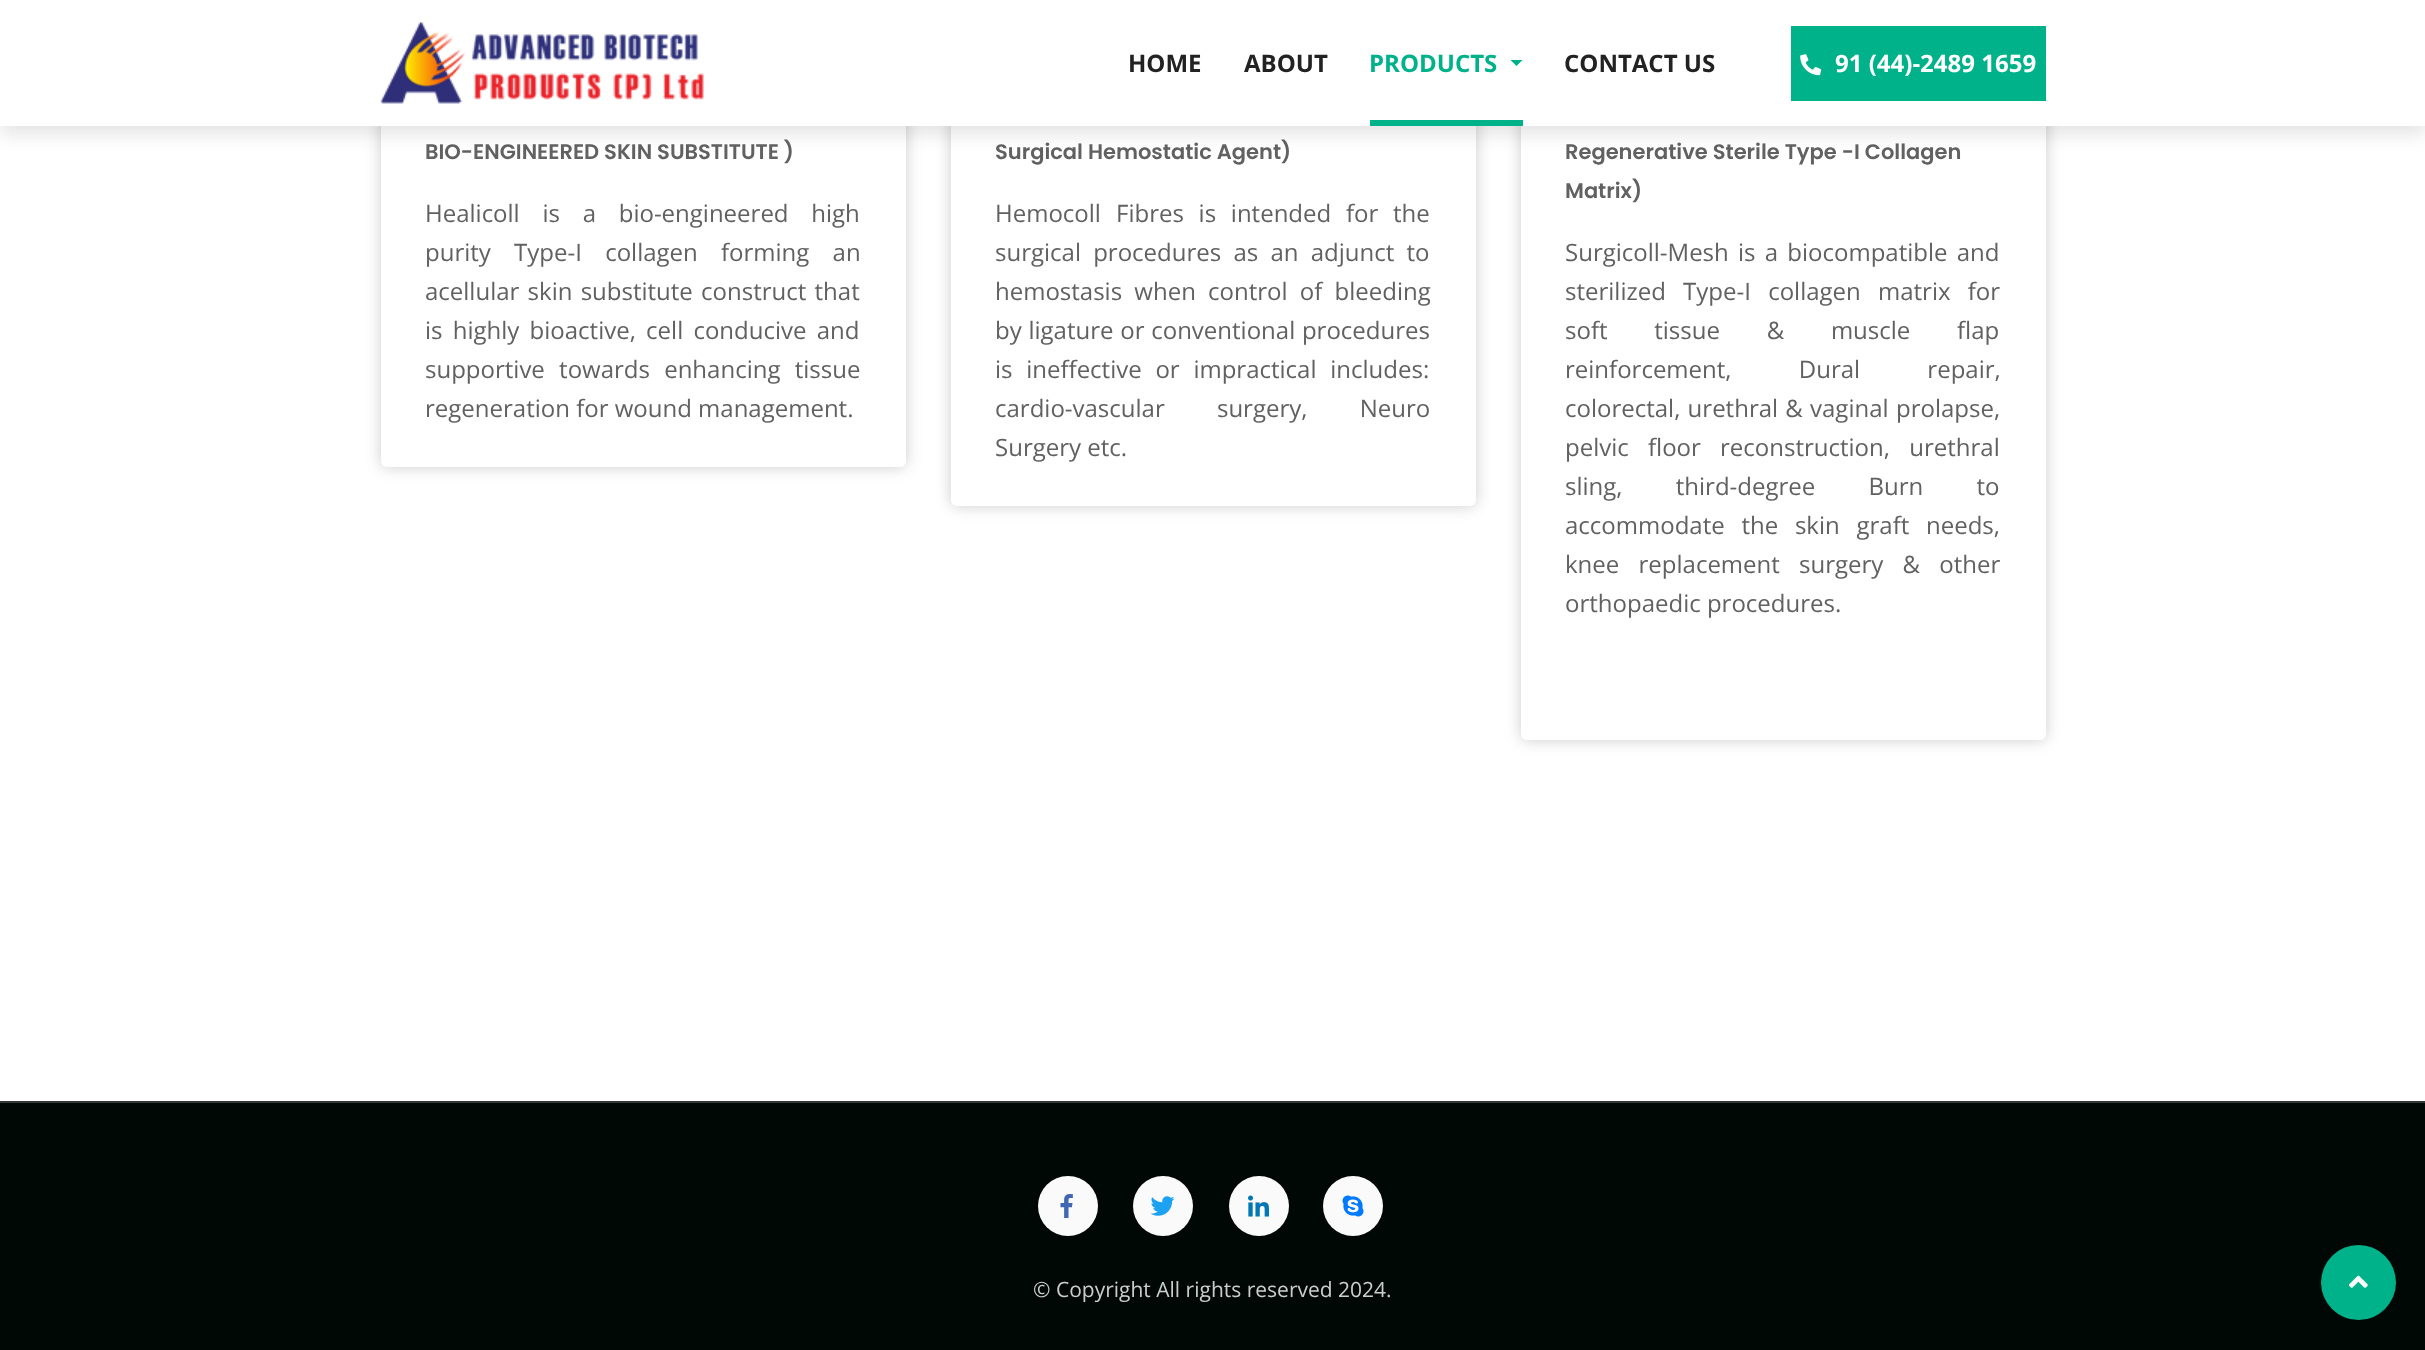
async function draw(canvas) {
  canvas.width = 2425
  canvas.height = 1350
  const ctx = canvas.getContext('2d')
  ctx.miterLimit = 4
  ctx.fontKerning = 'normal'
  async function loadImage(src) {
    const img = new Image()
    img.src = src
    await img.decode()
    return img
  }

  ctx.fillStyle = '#fff'
  ctx.fillRect(0, 0, 2425, 1350)
  ctx.fillStyle = '#00000033'
  ctx.filter = 'blur(7.5px)'
  ctx.beginPath()
  ctx.roundRect(381, -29, 525, 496, 6)
  ctx.fill()
  ctx.filter = 'none'
  ctx.fillStyle = '#fff'
  ctx.beginPath()
  ctx.roundRect(381, -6, 525, 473, 6)
  ctx.fill()
  ctx.fillStyle = '#00000033'
  ctx.filter = 'blur(7.5px)'
  ctx.beginPath()
  ctx.roundRect(951, -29, 525, 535, 6)
  ctx.fill()
  ctx.filter = 'none'
  ctx.fillStyle = '#fff'
  ctx.beginPath()
  ctx.roundRect(951, -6, 525, 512, 6)
  ctx.fill()
  ctx.fillStyle = '#00000033'
  ctx.filter = 'blur(7.5px)'
  ctx.beginPath()
  ctx.roundRect(1521, -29, 525, 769, 6)
  ctx.fill()
  ctx.filter = 'none'
  ctx.fillStyle = '#fff'
  ctx.beginPath()
  ctx.roundRect(1521, -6, 525, 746, 6)
  ctx.fill()
  ctx.fillStyle = '#0000001a'
  ctx.filter = 'blur(9px)'
  ctx.beginPath()
  ctx.rect(0, 9, 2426, 126)
  ctx.fill()
  ctx.filter = 'none'
  ctx.fillStyle = '#fff'
  ctx.fillRect(0, 0, 2425, 126)
  ctx.drawImage(await loadImage('image0.png'), 380, 22, 324, 82)
  ctx.font = 'bold 24px Open Sans'
  ctx.fillStyle = '#222'
  ctx.fillText('HOME', 1128, 72)
  ctx.fillText('ABOUT', 1244, 72)
  ctx.fillStyle = '#00b28a'
  ctx.fillText('PRODUCTS', 1369, 72)
  ctx.beginPath()
  ctx.moveTo(1510.5, 60)
  ctx.lineTo(1522.5, 60)
  ctx.lineTo(1516.5, 66)
  ctx.closePath()
  ctx.fill()
  ctx.fillRect(1370, 120, 153, 6)
  ctx.fillStyle = '#222'
  ctx.fillText('CONTACT US', 1564, 72)
  ctx.fillStyle = '#00b28a'
  ctx.fillRect(1791, 26, 255, 75)
  ctx.drawImage(await loadImage('image1.png'), 1800, 54, 22, 22)
  ctx.fillStyle = '#fff'
  ctx.fillText('91 (44)-2489 1659', 1835, 72)
  ctx.font = '600 21px Poppins'
  ctx.fillStyle = '#616161'
  ctx.fillText('BIO-ENGINEERED SKIN SUBSTITUTE )', 425, 159)
  ctx.wordSpacing = '16.5px'
  ctx.font = '24px Open Sans'
  ctx.fillText('Healicoll is a bio-engineered high', 425, 222)
  ctx.wordSpacing = '17px'
  ctx.fillText('purity Type-I collagen forming an', 425, 261)
  ctx.wordSpacing = '2px'
  ctx.fillText('acellular skin substitute construct that', 425, 300)
  ctx.wordSpacing = '4px'
  ctx.fillText('is highly bioactive, cell conducive and', 425, 339)
  ctx.wordSpacing = '8px'
  ctx.fillText('supportive towards enhancing tissue', 425, 378)
  ctx.wordSpacing = '0px'
  ctx.fillText('regeneration for wound management.', 425, 417)
  ctx.font = '600 21px Poppins'
  ctx.fillText('Surgical Hemostatic Agent)', 995, 159)
  ctx.font = '24px Open Sans'
  ctx.fillText('Hemocoll', 995, 222)
  ctx.wordSpacing = '8.5px'
  ctx.fillText('Fibres is intended for the', 1116, 222)
  ctx.wordSpacing = '6px'
  ctx.fillText('surgical procedures as an adjunct to', 995, 261)
  ctx.fillText('hemostasis when control of bleeding', 995, 300)
  ctx.wordSpacing = '0.5px'
  ctx.fillText('by ligature or conventional procedures', 995, 339)
  ctx.wordSpacing = '7.5px'
  ctx.fillText('is ineffective or impractical includes:', 995, 378)
  ctx.wordSpacing = '46px'
  ctx.fillText('cardio-vascular surgery, Neuro', 995, 417)
  ctx.wordSpacing = '0px'
  ctx.fillText('Surgery etc.', 995, 456)
  ctx.font = '600 21px Poppins'
  ctx.fillText('Regenerative Sterile Type -I Collagen', 1565, 159)
  ctx.fillText('Matrix)', 1565, 198)
  ctx.wordSpacing = '3px'
  ctx.font = '24px Open Sans'
  ctx.fillText('Surgicoll-Mesh is a biocompatible and', 1565, 261)
  ctx.wordSpacing = '11px'
  ctx.fillText('sterilized Type-I collagen matrix for', 1565, 300)
  ctx.wordSpacing = '40.5px'
  ctx.fillText('soft tissue & muscle flap', 1565, 339)
  ctx.wordSpacing = '61px'
  ctx.fillText('reinforcement, Dural repair,', 1565, 378)
  ctx.wordSpacing = '1px'
  ctx.fillText('colorectal, urethral & vaginal', 1565, 417)
  ctx.wordSpacing = '0px'
  ctx.fillText('prolapse,', 1896, 417)
  ctx.wordSpacing = '13px'
  ctx.fillText('pelvic floor reconstruction, urethral', 1565, 456)
  ctx.wordSpacing = '47px'
  ctx.fillText('sling, third-degree Burn to', 1565, 495)
  ctx.wordSpacing = '10.5px'
  ctx.fillText('accommodate the skin graft needs,', 1565, 534)
  ctx.wordSpacing = '13px'
  ctx.fillText('knee replacement surgery & other', 1565, 573)
  ctx.wordSpacing = '0px'
  ctx.fillText('orthopaedic procedures.', 1565, 612)
  ctx.fillStyle = '#000806'
  ctx.fillRect(0, 1103, 2425, 247)
  ctx.fillStyle = '#333938'
  ctx.fillRect(0, 1101, 2425, 2)
  ctx.fillStyle = '#fafafa'
  ctx.beginPath()
  ctx.arc(1068, 1206, 30, 0, 2 * Math.PI)
  ctx.fill()
  ctx.drawImage(await loadImage('image2.png'), 1060, 1194, 13, 24)
  ctx.beginPath()
  ctx.arc(1163, 1206, 30, 0, 2 * Math.PI)
  ctx.fill()
  ctx.drawImage(await loadImage('image3.png'), 1150, 1196, 25, 20)
  ctx.beginPath()
  ctx.arc(1259, 1206, 30, 0, 2 * Math.PI)
  ctx.fill()
  ctx.drawImage(await loadImage('image4.png'), 1248, 1195, 21, 22)
  ctx.beginPath()
  ctx.arc(1353, 1206, 30, 0, 2 * Math.PI)
  ctx.fill()
  ctx.drawImage(await loadImage('image5.png'), 1342, 1195, 22, 22)
  ctx.font = '21px Open Sans'
  ctx.fillStyle = '#cccecd'
  ctx.fillText('© Copyright All rights reserved 2024.', 1033, 1297)
  ctx.fillStyle = '#00b28a'
  ctx.beginPath()
  ctx.arc(2358.5, 1282.5, 37.5, 0, 2 * Math.PI)
  ctx.fill()
  ctx.drawImage(await loadImage('image6.png'), 2349, 1275, 19, 13)
}

draw(document.querySelector('canvas'))
